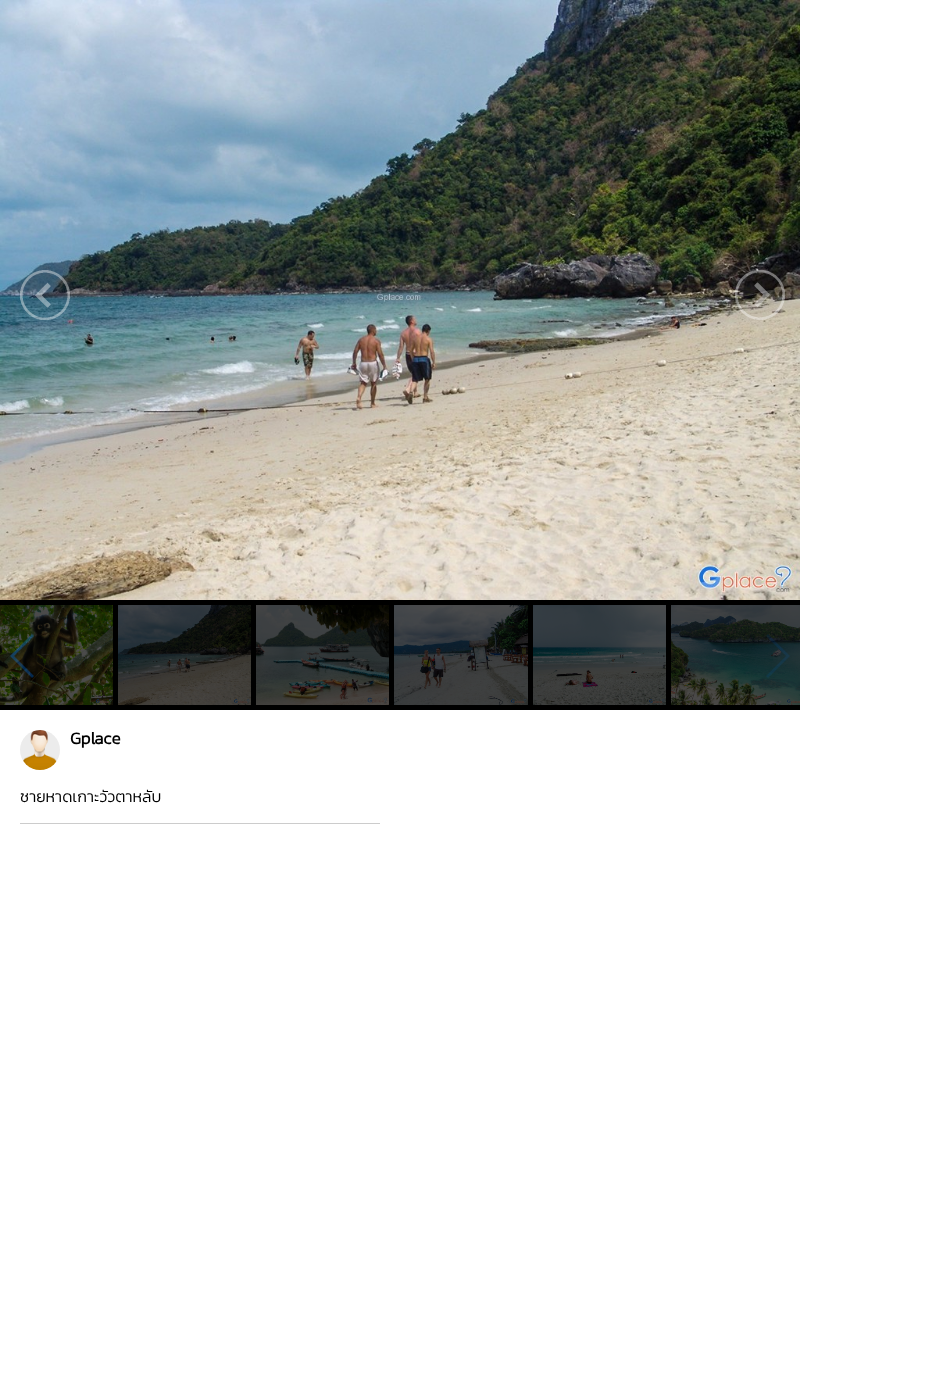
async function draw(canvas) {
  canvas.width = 936
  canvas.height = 1388
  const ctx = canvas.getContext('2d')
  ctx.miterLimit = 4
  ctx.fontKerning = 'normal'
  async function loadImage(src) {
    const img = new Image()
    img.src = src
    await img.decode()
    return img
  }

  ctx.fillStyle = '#fff'
  ctx.fillRect(0, 0, 936, 1388)
  ctx.fillStyle = '#000'
  ctx.fillRect(0, 600, 800, 110)
  ctx.drawImage(await loadImage('image0.png'), 0, 0, 800, 600)
  ctx.drawImage(await loadImage('image1.png'), 20, 270, 50, 50)
  ctx.drawImage(await loadImage('image2.png'), 735, 270, 50, 50)
  ctx.drawImage(await loadImage('image3.png'), 0, 605, 113, 100)
  ctx.drawImage(await loadImage('image4.png'), 118, 605, 133, 100)
  ctx.drawImage(await loadImage('image5.png'), 256, 605, 133, 100)
  ctx.drawImage(await loadImage('image6.png'), 394, 605, 134, 100)
  ctx.drawImage(await loadImage('image7.png'), 533, 605, 133, 100)
  ctx.drawImage(await loadImage('image8.png'), 671, 605, 129, 100)
  ctx.fillStyle = '#007aff4d'
  ctx.beginPath()
  ctx.moveTo(10, 656)
  ctx.lineTo(32, 634)
  ctx.lineTo(34, 636)
  ctx.lineTo(14, 656)
  ctx.lineTo(34, 676)
  ctx.lineTo(32, 678)
  ctx.closePath()
  ctx.fill()
  ctx.fillStyle = '#007aff1a'
  ctx.beginPath()
  ctx.moveTo(790, 656)
  ctx.lineTo(768, 678)
  ctx.lineTo(766, 676)
  ctx.lineTo(786, 656)
  ctx.lineTo(766, 636)
  ctx.lineTo(768, 634)
  ctx.closePath()
  ctx.fill()
  ctx.drawImage(await loadImage('image9.png'), 20, 730, 40, 40)
  ctx.font = 'bold 17px Kanit'
  ctx.fillStyle = '#000'
  ctx.fillText('Gplace', 70, 744)
  ctx.font = '300 16px Kanit'
  ctx.fillText('ชายหาดเกาะวัวตาหลับ', 20, 802)
  ctx.fillStyle = '#ccc'
  ctx.fillRect(20, 823, 360, 1)
}

draw(document.querySelector('canvas'))
